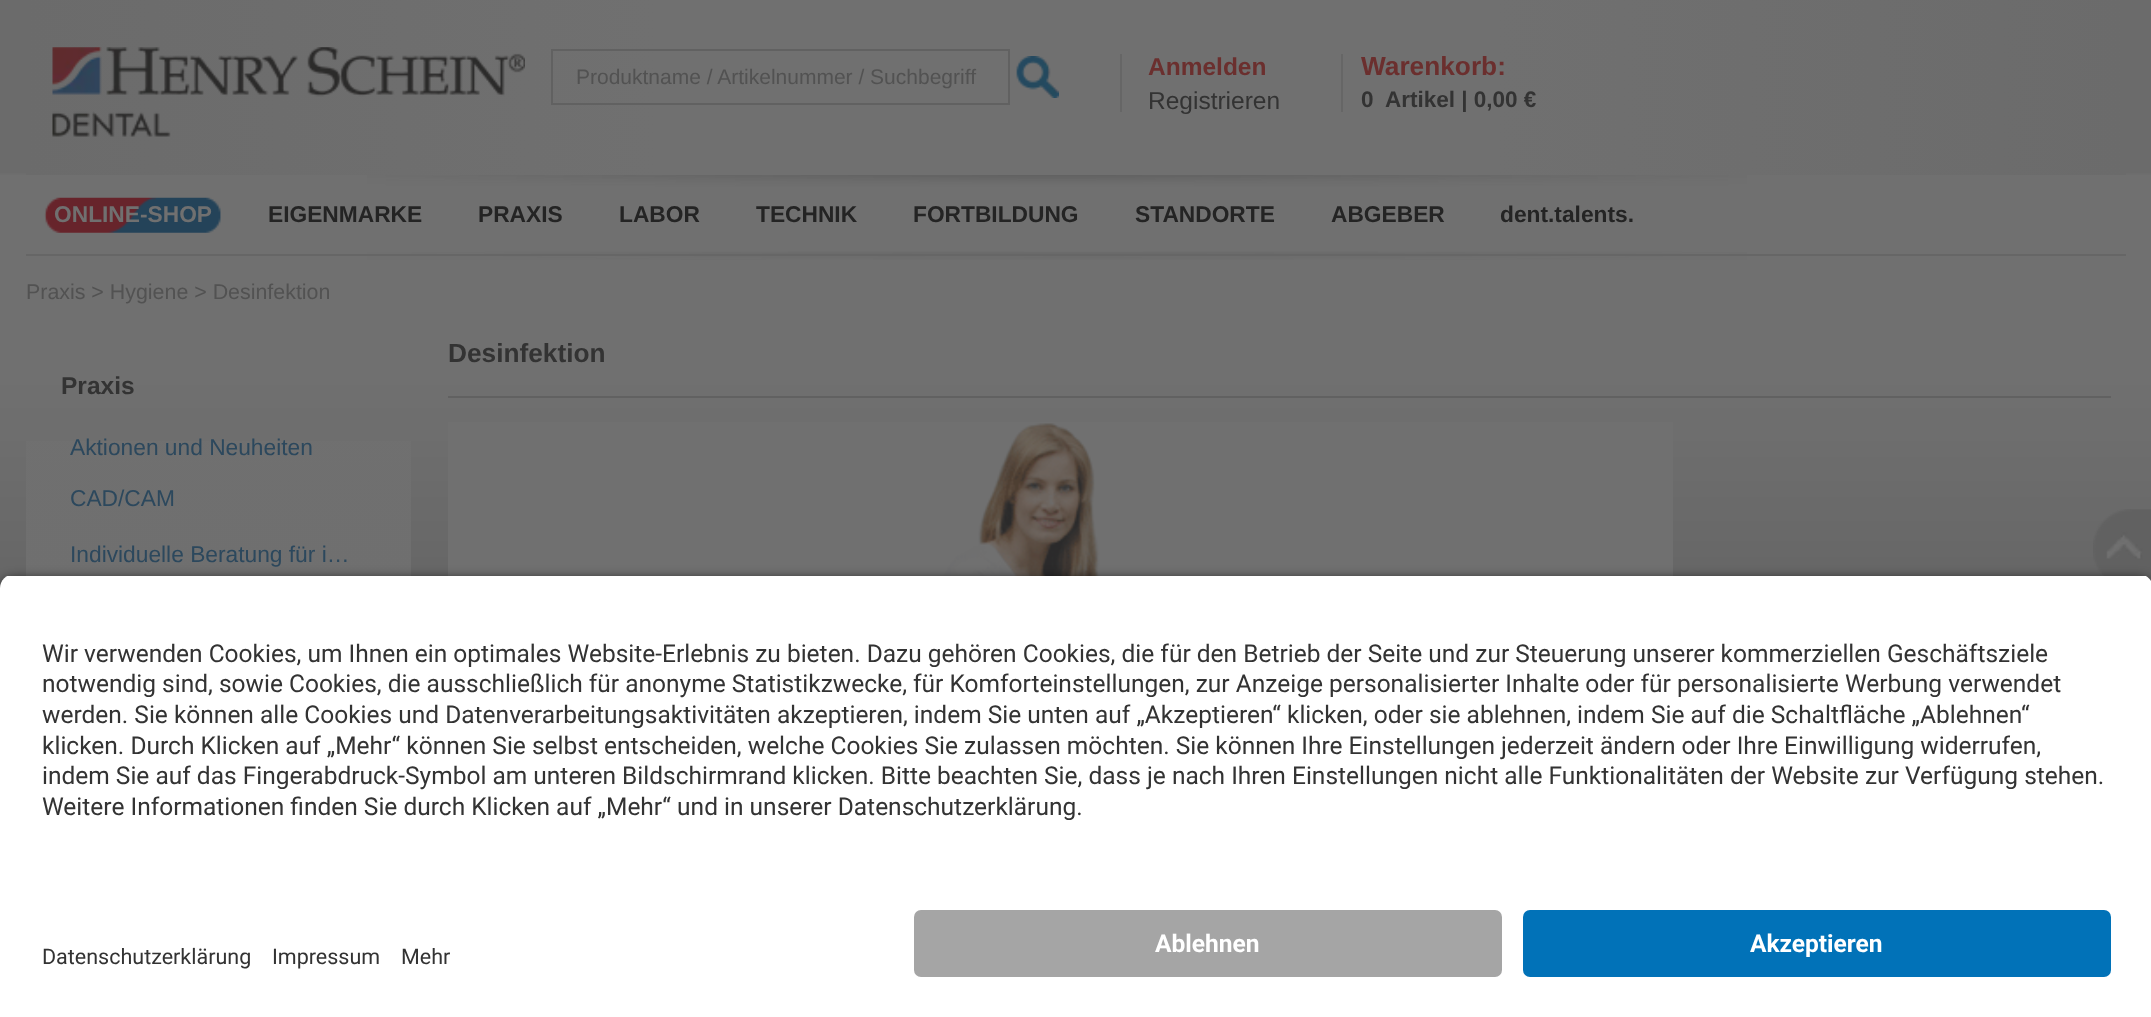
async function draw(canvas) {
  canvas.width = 2151
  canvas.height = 1017
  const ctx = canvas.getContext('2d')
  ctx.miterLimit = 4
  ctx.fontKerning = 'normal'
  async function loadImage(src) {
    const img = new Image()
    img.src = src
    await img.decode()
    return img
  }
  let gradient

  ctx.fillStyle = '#fff'
  ctx.fillRect(0, 0, 2151, 1017)
  ctx.drawImage(await loadImage('image0.png'), 0, 0, 2151, 588)
  gradient = ctx.createLinearGradient(26, 88, 2126, 87)
  gradient.addColorStop(0, '#6b6b6b')
  gradient.addColorStop(0.3, '#707070')
  gradient.addColorStop(0.7, '#707070')
  gradient.addColorStop(1, '#6b6b6b')
  ctx.fillStyle = gradient
  ctx.fillRect(26, 0, 2100, 175)
  ctx.drawImage(await loadImage('image1.png'), 52, 47, 473, 90)
  ctx.strokeStyle = '#616161'
  ctx.lineWidth = 2
  ctx.strokeRect(552, 50, 457, 54)
  ctx.font = '21px Liberation Sans'
  ctx.fillStyle = '#525252'
  ctx.fillText('Produktname / Artikelnummer / Suchbegriff', 576, 84)
  ctx.drawImage(await loadImage('image2.png'), 1016, 56, 43, 42)
  ctx.fillStyle = '#666'
  ctx.fillRect(1341, 54, 2, 58)
  ctx.fillRect(1120, 54, 2, 58)
  ctx.font = 'bold 24.5px Liberation Sans'
  ctx.fillStyle = '#6b2f2e'
  ctx.fillText('Anmelden', 1148, 75)
  ctx.font = '24.5px Liberation Sans'
  ctx.fillStyle = '#333'
  ctx.fillText('Registrieren', 1148, 109)
  ctx.font = 'bold 26.25px Liberation Sans'
  ctx.fillStyle = '#6b2f2e'
  ctx.fillText('Warenkorb:', 1361, 75)
  ctx.font = 'bold 22.5px Liberation Sans'
  ctx.fillStyle = '#333'
  ctx.fillText('0', 1361, 107)
  ctx.fillText('Artikel | 0,00 €', 1385, 107)
  ctx.drawImage(await loadImage('image3.png'), 367, 175, 1380, 85)
  ctx.fillStyle = '#666'
  ctx.fillRect(26, 254, 2100, 2)
  ctx.drawImage(await loadImage('image4.png'), 44, 197, 177, 36)
  ctx.font = 'bold 22.75px Liberation Sans'
  ctx.fillStyle = '#707070'
  ctx.fillText('ONLINE-SHOP', 54, 222)
  ctx.fillStyle = '#242424'
  ctx.fillText('EIGENMARKE', 268, 222)
  ctx.fillText('PRAXIS', 478, 222)
  ctx.fillText('LABOR', 619, 222)
  ctx.fillText('TECHNIK', 756, 222)
  ctx.fillText('FORTBILDUNG', 913, 222)
  ctx.fillText('STANDORTE', 1135, 222)
  ctx.fillText('ABGEBER', 1331, 222)
  ctx.fillText('dent.talents.', 1500, 222)
  ctx.font = '21.4px Liberation Sans'
  ctx.fillStyle = '#525252'
  ctx.fillText('Praxis > Hygiene > Desinfektion', 26, 299)
  ctx.font = 'bold 26.25px Liberation Sans'
  ctx.fillStyle = '#333'
  ctx.fillText('Desinfektion', 448, 362)
  ctx.fillStyle = '#616161'
  ctx.fillRect(448, 396, 1663, 2)
  ctx.drawImage(await loadImage('image5.png'), 448, 422, 1225, 154)
  gradient = ctx.createLinearGradient(219, 352, 219, 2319)
  gradient.addColorStop(0, '#707070')
  gradient.addColorStop(1, '#686868')
  ctx.fillStyle = gradient
  ctx.fillRect(26, 441, 385, 135)
  ctx.font = 'bold 24.5px Liberation Sans'
  ctx.fillStyle = '#333'
  ctx.fillText('Praxis', 61, 394)
  ctx.font = '22.75px Liberation Sans'
  ctx.fillStyle = '#2c485d'
  ctx.fillText('Aktionen und Neuheiten', 70, 455)
  ctx.fillText('CAD/CAM', 70, 506)
  ctx.fillText('Individuelle Beratung für i…', 70, 562)
  ctx.drawImage(await loadImage('image6.png'), 2093, 509, 58, 72)
  ctx.fillStyle = '#000000cc'
  ctx.filter = 'blur(6px)'
  ctx.beginPath()
  ctx.roundRect(0, 579, 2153, 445, 14)
  ctx.fill()
  ctx.filter = 'none'
  ctx.save()
  ctx.beginPath()
  ctx.moveTo(14, 574)
  ctx.lineTo(2139, 574)
  ctx.bezierCurveTo(2146.5, 574, 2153, 580.5, 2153, 588)
  ctx.lineTo(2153, 896)
  ctx.lineTo(0, 896)
  ctx.lineTo(0, 588)
  ctx.bezierCurveTo(0, 580.5, 6.5, 574, 14, 574)
  ctx.closePath()
  ctx.clip()
  ctx.fillStyle = '#fff'
  ctx.fillRect(0, 576, 2151, 320)
  ctx.restore()
  ctx.font = '24.5px Roboto'
  ctx.fillStyle = '#333'
  ctx.fillText('Wir verwenden Cookies, um Ihnen ein optimales Website-Erlebnis zu bieten. Dazu gehören Cookies, die für den Betrieb der Seite und zur Steuerung unserer kommerziellen Geschäftsziele', 42, 662)
  ctx.fillText('notwendig sind, sowie Cookies, die ausschließlich für anonyme Statistikzwecke, für Komforteinstellungen, zur Anzeige personalisierter Inhalte oder für personalisierte Werbung verwendet', 42, 692)
  ctx.fillText('werden. Sie können alle Cookies und Datenverarbeitungsaktivitäten akzeptieren, indem Sie unten auf „Akzeptieren“ klicken, oder sie ablehnen, indem Sie auf die Schaltfläche „Ablehnen“', 42, 723)
  ctx.fillText('klicken. Durch Klicken auf „Mehr“ können Sie selbst entscheiden, welche Cookies Sie zulassen möchten. Sie können Ihre Einstellungen jederzeit ändern oder Ihre Einwilligung widerrufen,', 42, 754)
  ctx.fillText('indem Sie auf das Fingerabdruck-Symbol am unteren Bildschirmrand klicken. Bitte beachten Sie, dass je nach Ihren Einstellungen nicht alle Funktionalitäten der Website zur Verfügung stehen.', 42, 784)
  ctx.fillText('Weitere Informationen finden Sie durch Klicken auf „Mehr“ und in unserer Datenschutzerklärung.', 42, 815)
  ctx.fillStyle = '#fff'
  ctx.fillRect(0, 896, 2151, 121)
  ctx.font = '21.5px Roboto'
  ctx.fillStyle = '#333'
  ctx.fillText('Datenschutzerklärung', 42, 964)
  ctx.fillText('Impressum', 272, 964)
  ctx.fillText('Mehr', 401, 964)
  ctx.fillStyle = '#a5a5a5'
  ctx.beginPath()
  ctx.roundRect(914, 910, 588, 67, 7)
  ctx.fill()
  ctx.font = 'bold 24.5px Roboto'
  ctx.fillStyle = '#fff'
  ctx.fillText('Ablehnen', 1155, 952)
  ctx.fillStyle = '#0172b8'
  ctx.beginPath()
  ctx.roundRect(1523, 910, 588, 67, 7)
  ctx.fill()
  ctx.fillStyle = '#fff'
  ctx.fillText('Akzeptieren', 1750, 952)
}

draw(document.querySelector('canvas'))
